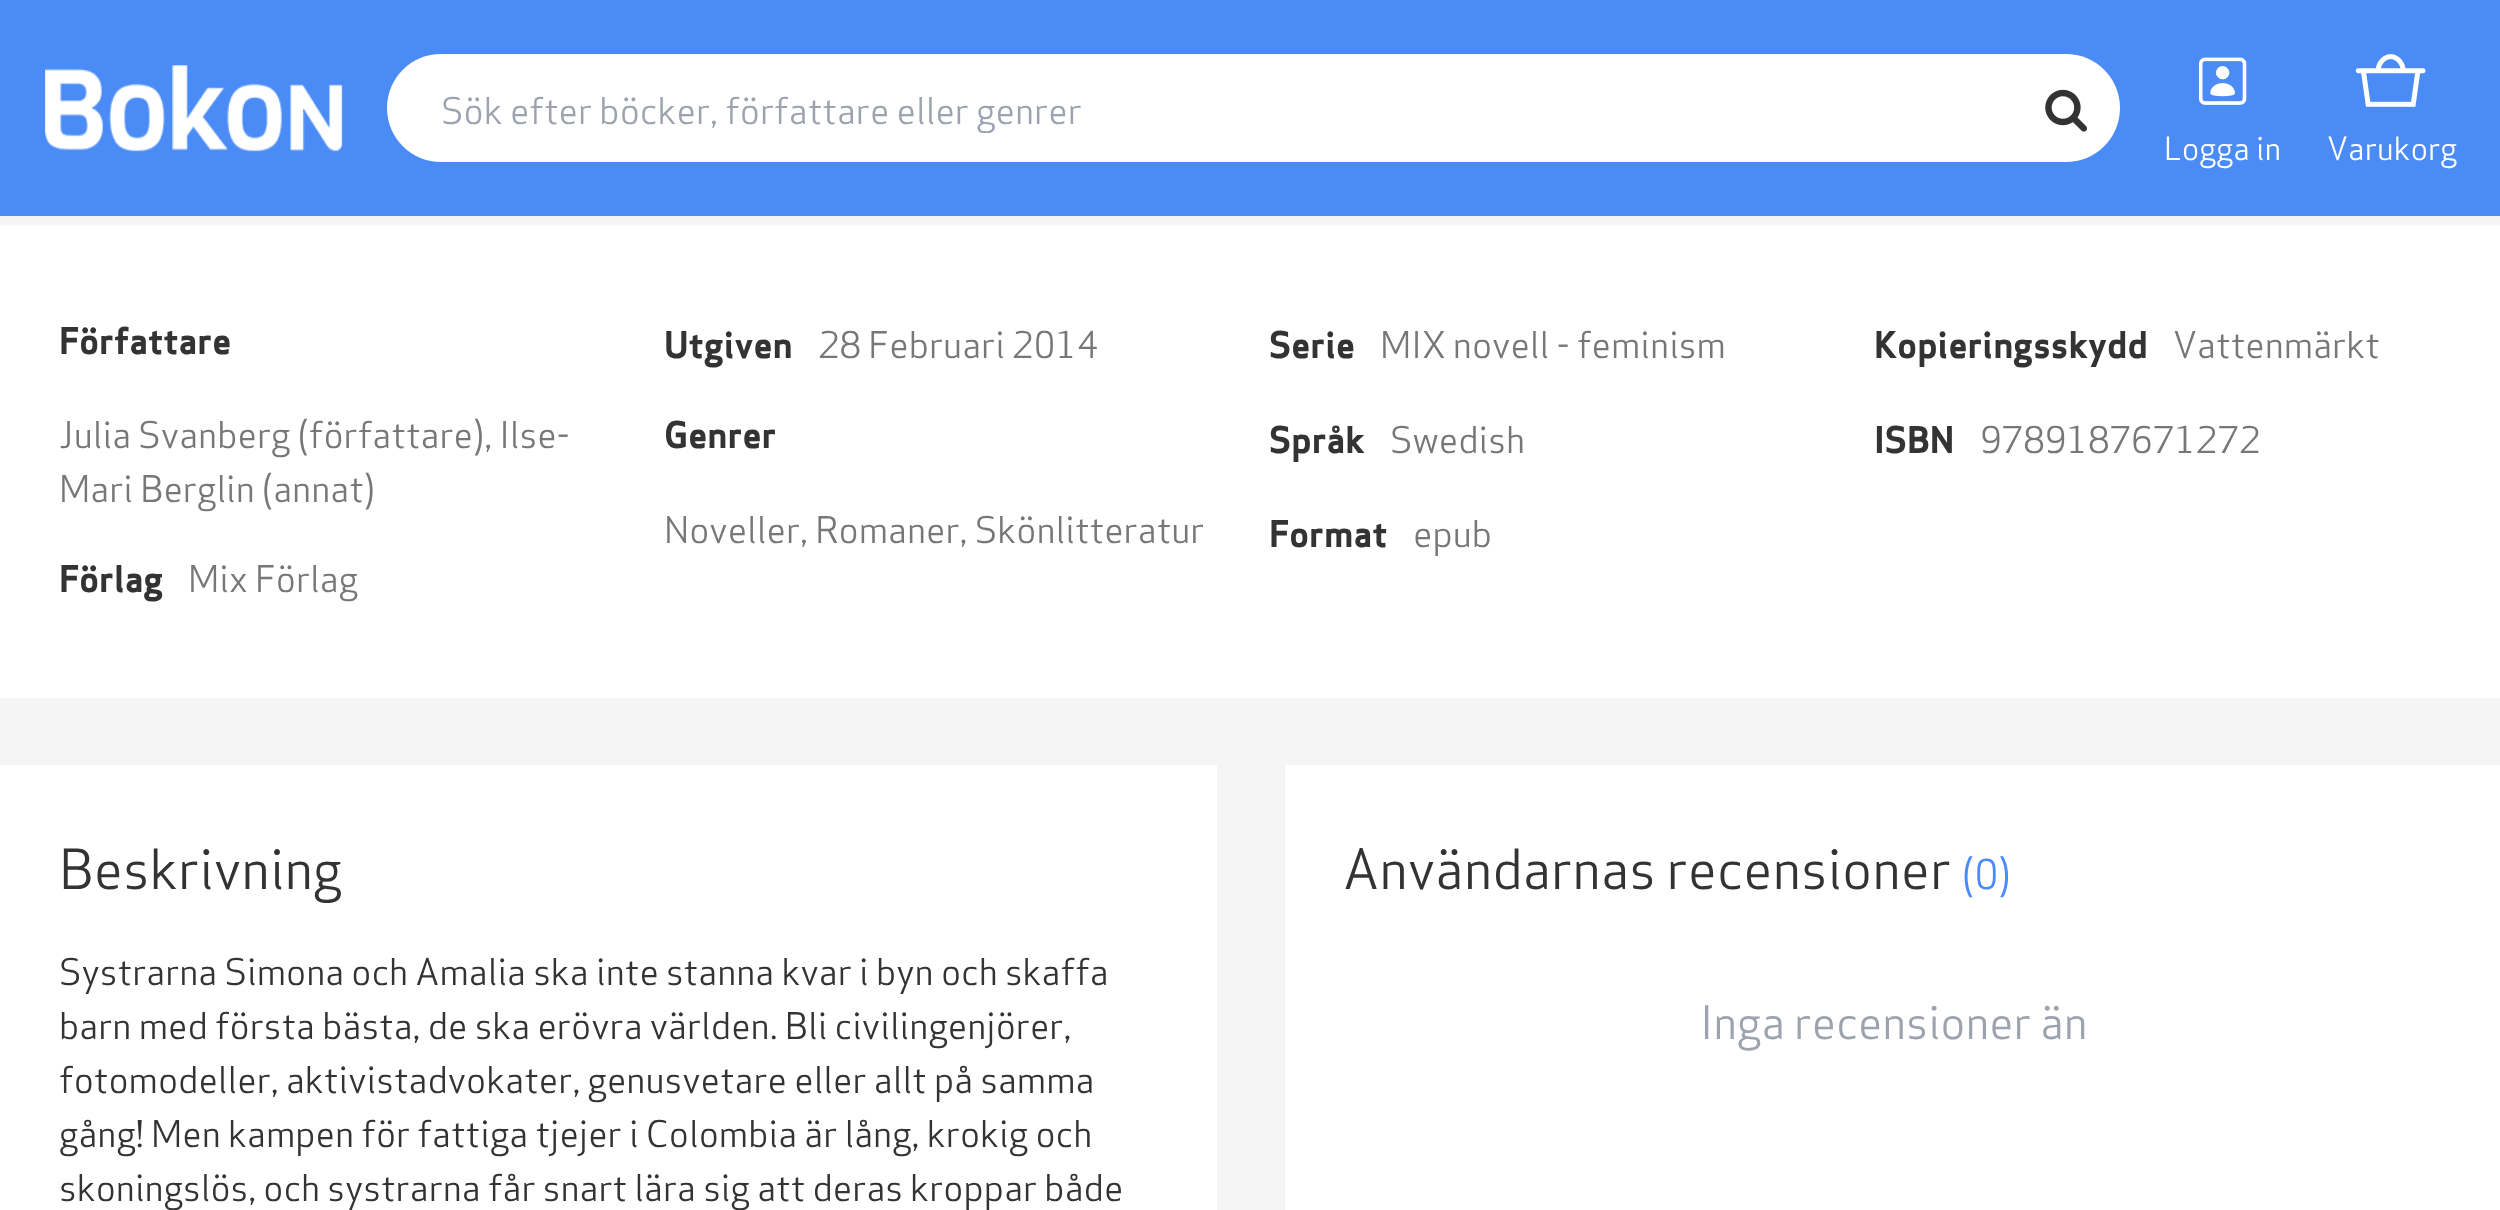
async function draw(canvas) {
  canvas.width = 2500
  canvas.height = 1210
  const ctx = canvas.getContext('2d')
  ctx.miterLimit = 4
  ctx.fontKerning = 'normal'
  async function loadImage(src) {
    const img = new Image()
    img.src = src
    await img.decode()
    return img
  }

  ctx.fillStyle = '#f5f5f5'
  ctx.fillRect(0, 0, 2500, 1210)
  ctx.fillStyle = '#4a8bf5'
  ctx.fillRect(0, 0, 2500, 216)
  ctx.drawImage(await loadImage('image0.png'), 45, 65, 298, 87)
  ctx.fillStyle = '#fff'
  ctx.beginPath()
  ctx.roundRect(387, 54, 1733, 108, 54)
  ctx.fill()
  ctx.save()
  ctx.beginPath()
  ctx.rect(441, 81, 1625, 52)
  ctx.clip()
  ctx.font = '36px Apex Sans'
  ctx.fillStyle = '#9ca3af'
  ctx.fillText('Sök efter böcker, författare eller genrer', 441, 124)
  ctx.restore()
  ctx.drawImage(await loadImage('image1.png'), 2045, 89, 42, 43)
  ctx.drawImage(await loadImage('image2.png'), 2198, 57, 49, 48)
  ctx.font = '31.5px Apex Sans'
  ctx.fillText('Logga in', 2164, 160)
  ctx.drawImage(await loadImage('image3.png'), 2355, 54, 71, 53)
  ctx.fillText('Varukorg', 2327, 160)
  ctx.fillRect(0, 225, 2500, 473)
  ctx.font = 'bold 36px Apex Sans'
  ctx.fillStyle = '#333'
  ctx.fillText('Författare', 59, 354)
  ctx.font = '36px Apex Sans'
  ctx.fillStyle = '#777'
  ctx.fillText('Julia Svanberg (författare), Ilse-', 59, 448)
  ctx.fillText('Mari Berglin (annat)', 59, 502)
  ctx.font = 'bold 36px Apex Sans'
  ctx.fillStyle = '#333'
  ctx.fillText('Utgiven', 664, 358)
  ctx.font = '36px Apex Sans'
  ctx.fillStyle = '#777'
  ctx.fillText('28 Februari 2014', 818, 358)
  ctx.font = 'bold 36px Apex Sans'
  ctx.fillStyle = '#333'
  ctx.fillText('Serie', 1269, 358)
  ctx.font = '36px Apex Sans'
  ctx.fillStyle = '#777'
  ctx.fillText('MIX novell - feminism', 1380, 358)
  ctx.font = 'bold 36px Apex Sans'
  ctx.fillStyle = '#333'
  ctx.fillText('Kopieringsskydd', 1874, 358)
  ctx.font = '36px Apex Sans'
  ctx.fillStyle = '#777'
  ctx.fillText('Vattenmärkt', 2173, 358)
  ctx.font = 'bold 36px Apex Sans'
  ctx.fillStyle = '#333'
  ctx.fillText('Genrer', 664, 448)
  ctx.font = '36px Apex Sans'
  ctx.fillStyle = '#777'
  ctx.fillText('Noveller, Romaner, Skönlitteratur', 664, 543)
  ctx.font = 'bold 36px Apex Sans'
  ctx.fillStyle = '#333'
  ctx.fillText('Språk', 1269, 453)
  ctx.font = '36px Apex Sans'
  ctx.fillStyle = '#777'
  ctx.fillText('Swedish', 1390, 453)
  ctx.font = 'bold 36px Apex Sans'
  ctx.fillStyle = '#333'
  ctx.fillText('ISBN', 1874, 453)
  ctx.font = '36px Apex Sans'
  ctx.fillStyle = '#777'
  ctx.fillText('9789187671272', 1980, 453)
  ctx.font = 'bold 36px Apex Sans'
  ctx.fillStyle = '#333'
  ctx.fillText('Format', 1269, 547)
  ctx.font = '36px Apex Sans'
  ctx.fillStyle = '#777'
  ctx.fillText('epub', 1413, 547)
  ctx.font = 'bold 36px Apex Sans'
  ctx.fillStyle = '#333'
  ctx.fillText('Förlag', 59, 592)
  ctx.font = '36px Apex Sans'
  ctx.fillStyle = '#777'
  ctx.fillText('Mix Förlag', 188, 592)
  ctx.fillStyle = '#fff'
  ctx.fillRect(0, 765, 1217, 445)
  ctx.font = '54px Apex Sans'
  ctx.fillStyle = '#333'
  ctx.fillText('Beskrivning', 59, 889)
  ctx.font = '36px Apex Sans'
  ctx.fillText('Systrarna Simona och Amalia ska inte stanna kvar i byn och skaffa', 59, 985)
  ctx.fillText('barn med första bästa, de ska erövra världen. Bli civilingenjörer,', 59, 1039)
  ctx.fillText('fotomodeller, aktivistadvokater, genusvetare eller allt på samma', 59, 1093)
  ctx.fillText('gång! Men kampen för fattiga tjejer i Colombia är lång, krokig och', 59, 1147)
  ctx.fillText('skoningslös, och systrarna får snart lära sig att deras kroppar både', 59, 1201)
  ctx.fillStyle = '#fff'
  ctx.fillRect(1285, 765, 1215, 445)
  ctx.font = '54px Apex Sans'
  ctx.fillStyle = '#333'
  ctx.fillText('Användarnas recensioner', 1343, 889)
  ctx.font = '40px Apex Sans'
  ctx.fillStyle = '#4a8bf5'
  ctx.fillText('(0)', 1962, 889)
  ctx.font = '45px Apex Sans'
  ctx.fillStyle = '#9ca3af'
  ctx.fillText('Inga recensioner än', 1700, 1039)
}

draw(document.querySelector('canvas'))
